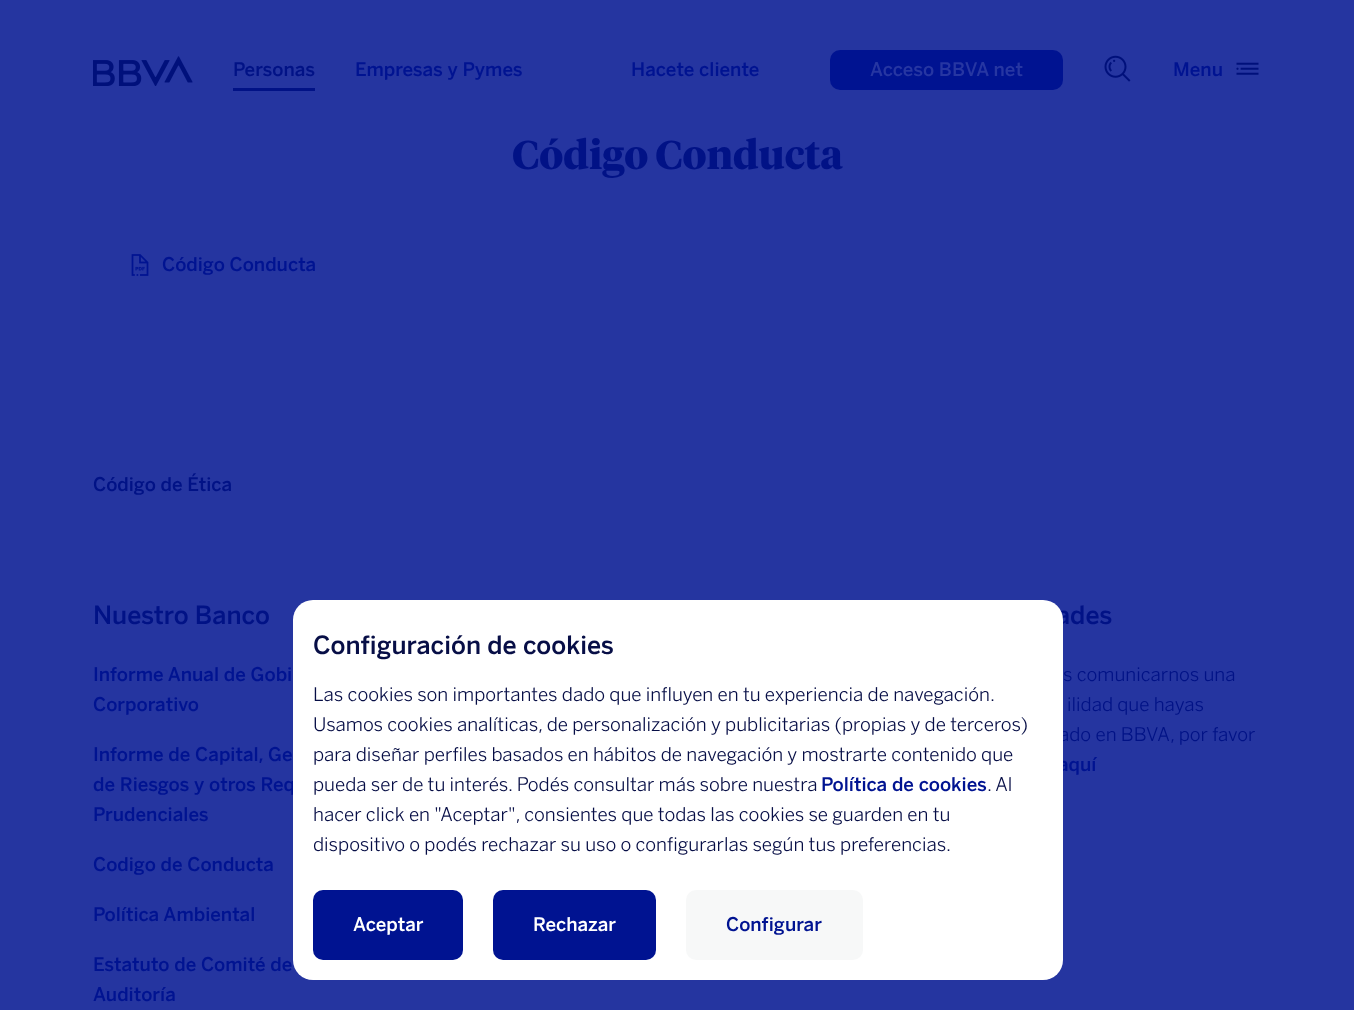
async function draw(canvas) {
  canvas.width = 1354
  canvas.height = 1010
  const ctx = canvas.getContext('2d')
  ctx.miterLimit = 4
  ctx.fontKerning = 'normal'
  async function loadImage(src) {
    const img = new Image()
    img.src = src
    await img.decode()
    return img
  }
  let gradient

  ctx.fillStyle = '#2535a0'
  ctx.fillRect(0, 0, 1354, 1010)
  ctx.drawImage(await loadImage('image0.png'), 93, 56, 100, 30)
  ctx.font = '500 18.75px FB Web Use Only'
  ctx.fillStyle = '#011286'
  ctx.fillText('Personas', 233, 76)
  ctx.fillRect(233, 88, 82, 3)
  ctx.fillStyle = '#001391'
  ctx.fillText('Empresas y Pymes', 355, 76)
  ctx.fillText('Hacete cliente', 631, 76)
  gradient = ctx.createLinearGradient(581, 28, 1061, 112)
  gradient.addColorStop(0.5, '#011286')
  gradient.addColorStop(0.5, '#001391')
  ctx.fillStyle = gradient
  ctx.beginPath()
  ctx.roundRect(830, 50, 233, 40, 10)
  ctx.fill()
  ctx.fillStyle = '#2636a2'
  ctx.fillText('Acceso BBVA net', 870, 76)
  ctx.drawImage(await loadImage('image1.png'), 1104, 55, 27, 27)
  ctx.fillStyle = '#001391'
  ctx.fillText('Menu', 1173, 76)
  ctx.drawImage(await loadImage('image2.png'), 1236, 62, 23, 13)
  ctx.fillText('de Riesgos y otros Req', 93, 791)
  ctx.font = '500 25px FB Web Use Only'
  ctx.fillStyle = '#011286'
  ctx.fillText('ades', 1056, 624)
  ctx.font = '300 18.75px FB Web Use Only'
  ctx.fillText('ado en BBVA, por favor', 1059, 741)
  ctx.font = '500 18.75px FB Web Use Only'
  ctx.fillStyle = '#001391'
  ctx.fillText('aquí', 1058, 771)
  ctx.fillStyle = '#fff'
  ctx.beginPath()
  ctx.roundRect(293, 600, 770, 380, 20)
  ctx.fill()
  ctx.font = '500 25px FB Web Use Only'
  ctx.fillStyle = '#070e46'
  ctx.fillText('Configuración de cookies', 313, 654)
  ctx.font = '300 18.75px FB Web Use Only'
  ctx.fillText('Las cookies son importantes dado que influyen en tu experiencia de navegación.', 313, 701)
  ctx.fillText('Usamos cookies analíticas, de personalización y publicitarias (propias y de terceros)', 313, 731)
  ctx.fillText('para diseñar perfiles basados en hábitos de navegación y mostrarte contenido que', 313, 761)
  ctx.fillText('pueda ser de tu interés. Podés consultar más sobre nuestra', 313, 791)
  ctx.font = '500 18.75px FB Web Use Only'
  ctx.fillStyle = '#001391'
  ctx.fillText('Política de cookies', 821, 791)
  ctx.font = '300 18.75px FB Web Use Only'
  ctx.fillStyle = '#070e46'
  ctx.fillText('. Al', 987, 791)
  ctx.fillText('hacer click en "Aceptar", consientes que todas las cookies se guarden en tu', 313, 821)
  ctx.fillText('dispositivo o podés rechazar su uso o configurarlas según tus preferencias.', 313, 851)
  gradient = ctx.createLinearGradient(148, 897, 465, 953)
  gradient.addColorStop(0.5, '#070e46')
  gradient.addColorStop(0.5, '#001391')
  ctx.fillStyle = gradient
  ctx.beginPath()
  ctx.roundRect(313, 890, 150, 70, 10)
  ctx.fill()
  ctx.font = '500 18.75px FB Web Use Only'
  ctx.fillStyle = '#fff'
  ctx.fillText('Aceptar', 353, 931)
  gradient = ctx.createLinearGradient(313, 895, 659, 955)
  gradient.addColorStop(0.5, '#070e46')
  gradient.addColorStop(0.5, '#001391')
  ctx.fillStyle = gradient
  ctx.beginPath()
  ctx.roundRect(493, 890, 163, 70, 10)
  ctx.fill()
  ctx.fillStyle = '#fff'
  ctx.fillText('Rechazar', 533, 931)
  gradient = ctx.createLinearGradient(494, 892, 865, 958)
  gradient.addColorStop(0.5, '#fff')
  gradient.addColorStop(0.5, '#f7f8f8')
  ctx.fillStyle = gradient
  ctx.beginPath()
  ctx.roundRect(686, 890, 177, 70, 10)
  ctx.fill()
  ctx.fillStyle = '#001391'
  ctx.fillText('Configurar', 726, 931)
  ctx.font = 'bold 40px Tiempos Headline'
  ctx.fillStyle = '#011286'
  ctx.fillText('Código Conducta', 512, 169)
  ctx.drawImage(await loadImage('image3.png'), 131, 254, 18, 22)
  ctx.font = '500 18.75px FB Web Use Only'
  ctx.fillStyle = '#001391'
  ctx.fillText('Código Conducta', 162, 271)
  ctx.fillStyle = '#011286'
  ctx.fillText('Código de Ética', 93, 491)
  ctx.font = '500 25px FB Web Use Only'
  ctx.fillText('Nuestro Banco', 93, 624)
  ctx.font = '500 18.75px FB Web Use Only'
  ctx.fillStyle = '#001391'
  ctx.fillText('Informe Anual de Gobi', 93, 681)
  ctx.fillText('Corporativo', 93, 711)
  ctx.fillText('Informe de Capital, Ge', 93, 761)
  ctx.fillText('Prudenciales', 93, 821)
  ctx.fillText('Codigo de Conducta', 93, 871)
  ctx.fillText('Política Ambiental', 93, 921)
  ctx.fillText('Estatuto de Comité de', 93, 971)
  ctx.fillText('Auditoría', 93, 1001)
  ctx.font = '300 18.75px FB Web Use Only'
  ctx.fillStyle = '#011286'
  ctx.fillText('s comunicarnos una', 1063, 681)
  ctx.fillText('ilidad que hayas', 1067, 711)
}

draw(document.querySelector('canvas'))
